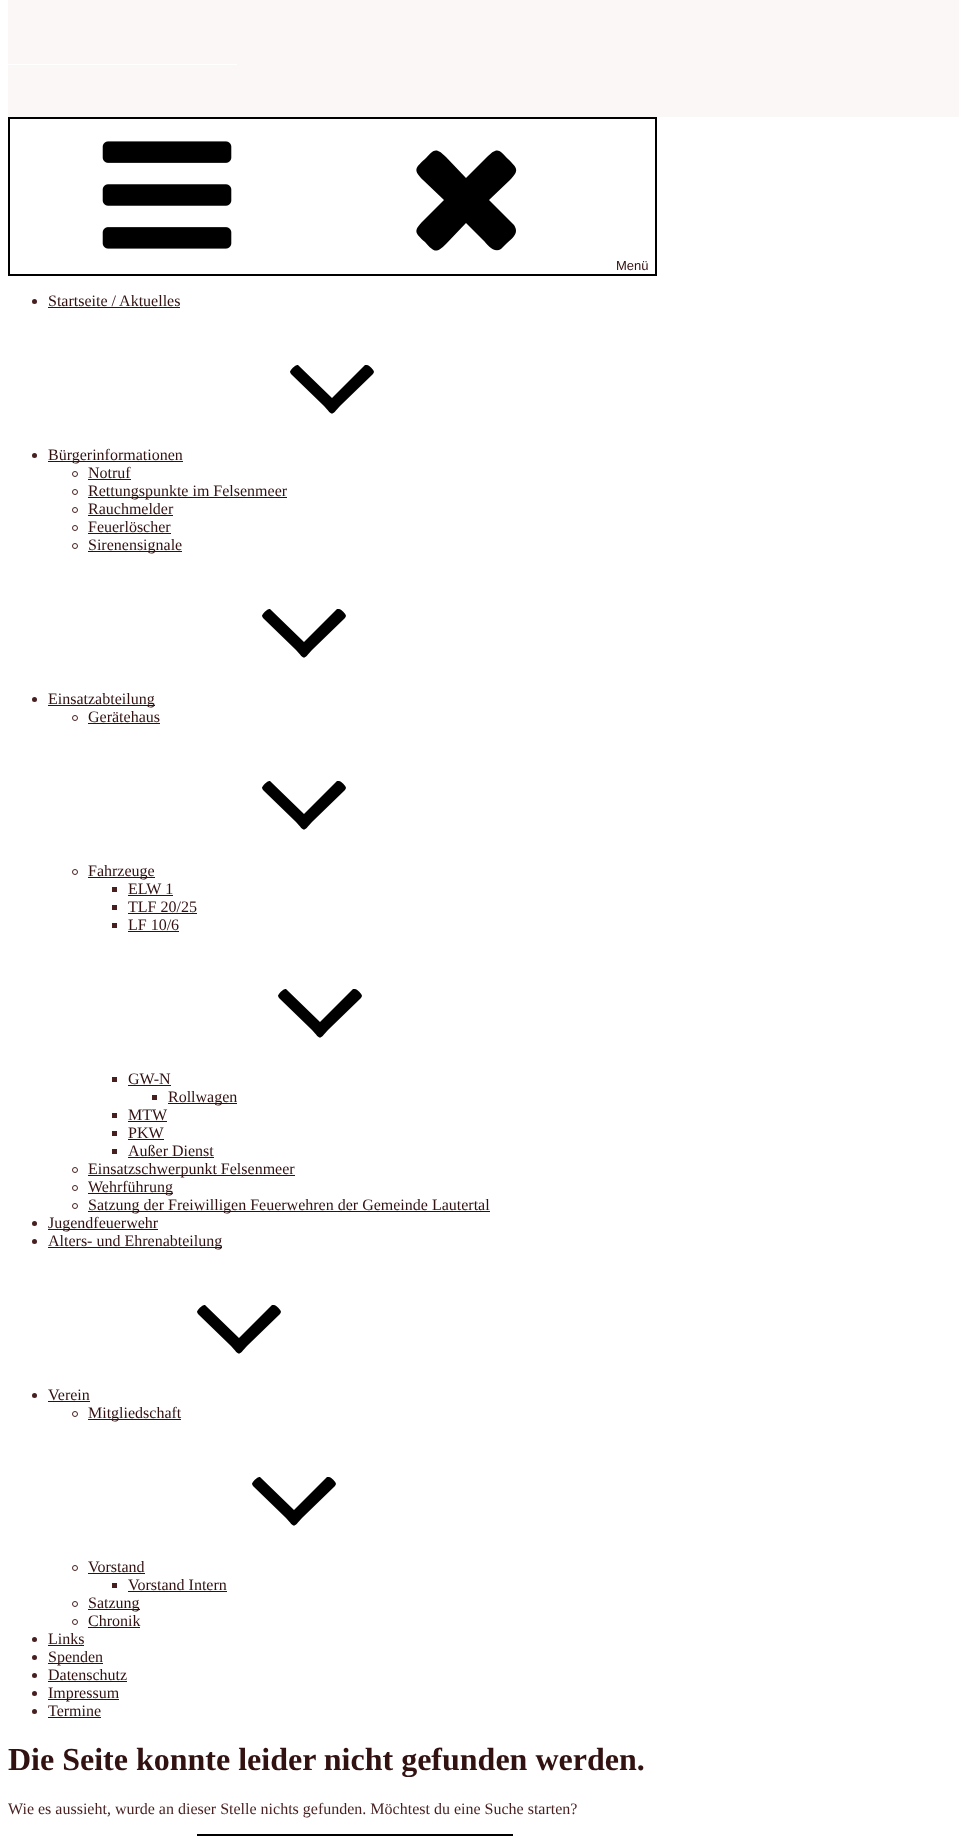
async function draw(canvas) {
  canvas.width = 967
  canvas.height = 1836
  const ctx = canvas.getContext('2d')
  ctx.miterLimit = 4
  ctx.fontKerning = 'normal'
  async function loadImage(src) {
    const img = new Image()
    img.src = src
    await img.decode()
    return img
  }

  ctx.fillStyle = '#fff'
  ctx.fillRect(0, 0, 967, 1836)
  ctx.fillStyle = '#fcf7f7'
  ctx.fillRect(8, 0, 951, 117)
  ctx.fillStyle = '#fff'
  ctx.fillRect(8, 64, 229, 1)
  ctx.strokeStyle = '#000'
  ctx.lineWidth = 2
  ctx.strokeRect(9, 118, 647, 157)
  ctx.drawImage(await loadImage('image0.png'), 102, 141, 130, 108)
  ctx.fillStyle = '#000'
  ctx.beginPath()
  ctx.moveTo(516, 231)
  ctx.bezierCurveTo(516, 236, 510, 240, 506, 244)
  ctx.lineTo(501, 249)
  ctx.bezierCurveTo(494, 254, 487, 244, 483, 240)
  ctx.lineTo(466, 223)
  ctx.lineTo(446, 244)
  ctx.bezierCurveTo(436, 254, 434, 252, 425, 242)
  ctx.bezierCurveTo(415, 233, 413, 231, 423, 221)
  ctx.lineTo(444, 200)
  ctx.lineTo(423, 180)
  ctx.bezierCurveTo(413, 170, 415, 168, 425, 159)
  ctx.bezierCurveTo(434, 149, 436, 147, 446, 157)
  ctx.lineTo(466, 178)
  ctx.lineTo(487, 157)
  ctx.bezierCurveTo(497, 147, 499, 149, 508, 159)
  ctx.bezierCurveTo(517, 168, 520, 170, 510, 180)
  ctx.lineTo(489, 200)
  ctx.lineTo(514, 225)
  ctx.bezierCurveTo(515, 227, 516, 228, 516, 231)
  ctx.closePath()
  ctx.fill()
  ctx.font = '13px Liberation Sans'
  ctx.fillStyle = '#321111'
  ctx.fillText('Menü', 616, 270)
  ctx.fillStyle = '#471f1f'
  ctx.beginPath()
  ctx.arc(34.5, 301.5, 2.5, 0, 2 * Math.PI)
  ctx.fill()
  ctx.font = '16px Liberation Serif'
  ctx.fillStyle = '#321111'
  ctx.fillText('Startseite / Aktuelles', 48, 306)
  ctx.fillRect(48, 307, 132, 1)
  ctx.fillStyle = '#471f1f'
  ctx.beginPath()
  ctx.arc(34.5, 455.5, 2.5, 0, 2 * Math.PI)
  ctx.fill()
  ctx.fillStyle = '#321111'
  ctx.fillRect(48, 461, 135, 1)
  ctx.fillText('Bürgerinformationen', 48, 460)
  ctx.fillStyle = '#000'
  ctx.beginPath()
  ctx.moveTo(374, 372)
  ctx.lineTo(373, 374)
  ctx.lineTo(340, 406)
  ctx.bezierCurveTo(331, 416, 333, 416, 324, 406)
  ctx.lineTo(291, 374)
  ctx.lineTo(290, 372)
  ctx.bezierCurveTo(290, 370, 296, 364, 298, 365)
  ctx.lineTo(332, 398)
  ctx.lineTo(365, 365)
  ctx.lineTo(367, 365)
  ctx.bezierCurveTo(369, 365, 374, 370, 374, 372)
  ctx.closePath()
  ctx.fill()
  ctx.beginPath()
  ctx.arc(75, 474, 2.5, 0, 2 * Math.PI)
  ctx.strokeStyle = '#471f1f'
  ctx.lineWidth = 1
  ctx.stroke()
  ctx.fillStyle = '#321111'
  ctx.fillText('Notruf', 88, 478)
  ctx.fillRect(88, 479, 43, 1)
  ctx.beginPath()
  ctx.arc(75, 492, 2.5, 0, 2 * Math.PI)
  ctx.stroke()
  ctx.fillRect(88, 497, 199, 1)
  ctx.fillText('Rettungspunkte im Felsenmeer', 88, 496)
  ctx.beginPath()
  ctx.arc(75, 510, 2.5, 0, 2 * Math.PI)
  ctx.stroke()
  ctx.fillText('Rauchmelder', 88, 514)
  ctx.fillRect(88, 515, 85, 1)
  ctx.beginPath()
  ctx.arc(75, 528, 2.5, 0, 2 * Math.PI)
  ctx.stroke()
  ctx.fillText('Feuerlöscher', 88, 532)
  ctx.fillRect(88, 533, 83, 1)
  ctx.beginPath()
  ctx.arc(75, 546, 2.5, 0, 2 * Math.PI)
  ctx.stroke()
  ctx.fillRect(88, 551, 94, 1)
  ctx.fillText('Sirenensignale', 88, 550)
  ctx.fillStyle = '#471f1f'
  ctx.beginPath()
  ctx.arc(34.5, 699.5, 2.5, 0, 2 * Math.PI)
  ctx.fill()
  ctx.fillStyle = '#321111'
  ctx.fillRect(48, 705, 107, 1)
  ctx.fillText('Einsatzabteilung', 48, 704)
  ctx.fillStyle = '#000'
  ctx.beginPath()
  ctx.moveTo(346, 616)
  ctx.lineTo(345, 618)
  ctx.lineTo(312, 650)
  ctx.bezierCurveTo(303, 660, 305, 660, 296, 650)
  ctx.lineTo(263, 618)
  ctx.lineTo(262, 616)
  ctx.bezierCurveTo(262, 614, 268, 608, 270, 609)
  ctx.lineTo(304, 642)
  ctx.lineTo(337, 609)
  ctx.lineTo(339, 609)
  ctx.bezierCurveTo(341, 609, 346, 614, 346, 616)
  ctx.closePath()
  ctx.fill()
  ctx.beginPath()
  ctx.arc(75, 718, 2.5, 0, 2 * Math.PI)
  ctx.stroke()
  ctx.fillStyle = '#321111'
  ctx.fillText('Gerätehaus', 88, 722)
  ctx.fillRect(88, 723, 72, 1)
  ctx.beginPath()
  ctx.arc(75, 872, 2.5, 0, 2 * Math.PI)
  ctx.stroke()
  ctx.fillRect(88, 877, 67, 1)
  ctx.fillText('Fahrzeuge', 88, 876)
  ctx.fillStyle = '#000'
  ctx.beginPath()
  ctx.moveTo(346, 788)
  ctx.lineTo(345, 790)
  ctx.lineTo(312, 822)
  ctx.bezierCurveTo(303, 832, 305, 832, 296, 822)
  ctx.lineTo(263, 790)
  ctx.lineTo(262, 788)
  ctx.bezierCurveTo(262, 786, 268, 780, 270, 781)
  ctx.lineTo(304, 814)
  ctx.lineTo(337, 781)
  ctx.lineTo(339, 781)
  ctx.bezierCurveTo(341, 781, 346, 786, 346, 788)
  ctx.closePath()
  ctx.fill()
  ctx.fillStyle = '#471f1f'
  ctx.fillRect(112, 887, 5, 5)
  ctx.fillStyle = '#321111'
  ctx.fillText('ELW 1', 128, 894)
  ctx.fillRect(128, 895, 45, 1)
  ctx.fillStyle = '#471f1f'
  ctx.fillRect(112, 905, 5, 5)
  ctx.fillStyle = '#321111'
  ctx.fillText('TLF 20/25', 128, 912)
  ctx.fillRect(128, 913, 69, 1)
  ctx.fillStyle = '#471f1f'
  ctx.fillRect(112, 923, 5, 5)
  ctx.fillStyle = '#321111'
  ctx.fillText('LF 10/6', 128, 930)
  ctx.fillRect(128, 931, 51, 1)
  ctx.fillStyle = '#471f1f'
  ctx.fillRect(112, 1077, 5, 5)
  ctx.fillStyle = '#321111'
  ctx.fillText('GW-N', 128, 1084)
  ctx.fillRect(128, 1085, 43, 1)
  ctx.fillStyle = '#000'
  ctx.beginPath()
  ctx.moveTo(362, 996)
  ctx.lineTo(361, 998)
  ctx.lineTo(328, 1030)
  ctx.bezierCurveTo(319, 1040, 321, 1040, 312, 1030)
  ctx.lineTo(279, 998)
  ctx.lineTo(278, 996)
  ctx.bezierCurveTo(278, 994, 284, 988, 286, 989)
  ctx.lineTo(320, 1022)
  ctx.lineTo(353, 989)
  ctx.lineTo(355, 989)
  ctx.bezierCurveTo(357, 989, 362, 994, 362, 996)
  ctx.closePath()
  ctx.fill()
  ctx.fillStyle = '#471f1f'
  ctx.fillRect(152, 1095, 5, 5)
  ctx.fillStyle = '#321111'
  ctx.fillRect(168, 1103, 69, 1)
  ctx.fillText('Rollwagen', 168, 1102)
  ctx.fillStyle = '#471f1f'
  ctx.fillRect(112, 1113, 5, 5)
  ctx.fillStyle = '#321111'
  ctx.fillText('MTW', 128, 1120)
  ctx.fillRect(128, 1121, 39, 1)
  ctx.fillStyle = '#471f1f'
  ctx.fillRect(112, 1131, 5, 5)
  ctx.fillStyle = '#321111'
  ctx.fillText('PKW', 128, 1138)
  ctx.fillRect(128, 1139, 36, 1)
  ctx.fillStyle = '#471f1f'
  ctx.fillRect(112, 1149, 5, 5)
  ctx.fillStyle = '#321111'
  ctx.fillText('Außer Dienst', 128, 1156)
  ctx.fillRect(128, 1157, 86, 1)
  ctx.beginPath()
  ctx.arc(75, 1170, 2.5, 0, 2 * Math.PI)
  ctx.stroke()
  ctx.fillRect(88, 1175, 207, 1)
  ctx.fillText('Einsatzschwerpunkt Felsenmeer', 88, 1174)
  ctx.beginPath()
  ctx.arc(75, 1188, 2.5, 0, 2 * Math.PI)
  ctx.stroke()
  ctx.fillRect(88, 1193, 85, 1)
  ctx.fillText('Wehrführung', 88, 1192)
  ctx.beginPath()
  ctx.arc(75, 1206, 2.5, 0, 2 * Math.PI)
  ctx.stroke()
  ctx.fillRect(88, 1211, 402, 1)
  ctx.fillText('Satzung der Freiwilligen Feuerwehren der Gemeinde Lautertal', 88, 1210)
  ctx.fillStyle = '#471f1f'
  ctx.beginPath()
  ctx.arc(34.5, 1223.5, 2.5, 0, 2 * Math.PI)
  ctx.fill()
  ctx.fillStyle = '#321111'
  ctx.fillRect(48, 1229, 110, 1)
  ctx.fillText('Jugendfeuerwehr', 48, 1228)
  ctx.fillStyle = '#471f1f'
  ctx.beginPath()
  ctx.arc(34.5, 1241.5, 2.5, 0, 2 * Math.PI)
  ctx.fill()
  ctx.fillStyle = '#321111'
  ctx.fillRect(48, 1247, 174, 1)
  ctx.fillText('Alters- und Ehrenabteilung', 48, 1246)
  ctx.fillStyle = '#471f1f'
  ctx.beginPath()
  ctx.arc(34.5, 1395.5, 2.5, 0, 2 * Math.PI)
  ctx.fill()
  ctx.fillStyle = '#321111'
  ctx.fillText('Verein', 48, 1400)
  ctx.fillRect(48, 1401, 42, 1)
  ctx.fillStyle = '#000'
  ctx.beginPath()
  ctx.moveTo(281, 1312)
  ctx.lineTo(280, 1314)
  ctx.lineTo(247, 1346)
  ctx.bezierCurveTo(238, 1356, 240, 1356, 231, 1346)
  ctx.lineTo(198, 1314)
  ctx.lineTo(197, 1312)
  ctx.bezierCurveTo(197, 1310, 203, 1304, 205, 1305)
  ctx.lineTo(239, 1338)
  ctx.lineTo(272, 1305)
  ctx.lineTo(274, 1305)
  ctx.bezierCurveTo(276, 1305, 281, 1310, 281, 1312)
  ctx.closePath()
  ctx.fill()
  ctx.beginPath()
  ctx.arc(75, 1414, 2.5, 0, 2 * Math.PI)
  ctx.stroke()
  ctx.fillStyle = '#321111'
  ctx.fillRect(88, 1419, 93, 1)
  ctx.fillText('Mitgliedschaft', 88, 1418)
  ctx.beginPath()
  ctx.arc(75, 1568, 2.5, 0, 2 * Math.PI)
  ctx.stroke()
  ctx.fillText('Vorstand', 88, 1572)
  ctx.fillRect(88, 1573, 57, 1)
  ctx.fillStyle = '#000'
  ctx.beginPath()
  ctx.moveTo(336, 1484)
  ctx.lineTo(335, 1486)
  ctx.lineTo(302, 1518)
  ctx.bezierCurveTo(293, 1528, 295, 1528, 286, 1518)
  ctx.lineTo(253, 1486)
  ctx.lineTo(252, 1484)
  ctx.bezierCurveTo(252, 1482, 258, 1476, 260, 1477)
  ctx.lineTo(294, 1510)
  ctx.lineTo(327, 1477)
  ctx.lineTo(329, 1477)
  ctx.bezierCurveTo(331, 1477, 336, 1482, 336, 1484)
  ctx.closePath()
  ctx.fill()
  ctx.fillStyle = '#471f1f'
  ctx.fillRect(112, 1583, 5, 5)
  ctx.fillStyle = '#321111'
  ctx.fillText('Vorstand Intern', 128, 1590)
  ctx.fillRect(128, 1591, 99, 1)
  ctx.beginPath()
  ctx.arc(75, 1604, 2.5, 0, 2 * Math.PI)
  ctx.stroke()
  ctx.fillRect(88, 1609, 52, 1)
  ctx.fillText('Satzung', 88, 1608)
  ctx.beginPath()
  ctx.arc(75, 1622, 2.5, 0, 2 * Math.PI)
  ctx.stroke()
  ctx.fillText('Chronik', 88, 1626)
  ctx.fillRect(88, 1627, 52, 1)
  ctx.fillStyle = '#471f1f'
  ctx.beginPath()
  ctx.arc(34.5, 1639.5, 2.5, 0, 2 * Math.PI)
  ctx.fill()
  ctx.fillStyle = '#321111'
  ctx.fillText('Links', 48, 1644)
  ctx.fillRect(48, 1645, 36, 1)
  ctx.fillStyle = '#471f1f'
  ctx.beginPath()
  ctx.arc(34.5, 1657.5, 2.5, 0, 2 * Math.PI)
  ctx.fill()
  ctx.fillStyle = '#321111'
  ctx.fillRect(48, 1663, 55, 1)
  ctx.fillText('Spenden', 48, 1662)
  ctx.fillStyle = '#471f1f'
  ctx.beginPath()
  ctx.arc(34.5, 1675.5, 2.5, 0, 2 * Math.PI)
  ctx.fill()
  ctx.fillStyle = '#321111'
  ctx.fillText('Datenschutz', 48, 1680)
  ctx.fillRect(48, 1681, 79, 1)
  ctx.fillStyle = '#471f1f'
  ctx.beginPath()
  ctx.arc(34.5, 1693.5, 2.5, 0, 2 * Math.PI)
  ctx.fill()
  ctx.fillStyle = '#321111'
  ctx.fillRect(48, 1699, 71, 1)
  ctx.fillText('Impressum', 48, 1698)
  ctx.fillStyle = '#471f1f'
  ctx.beginPath()
  ctx.arc(34.5, 1711.5, 2.5, 0, 2 * Math.PI)
  ctx.fill()
  ctx.fillStyle = '#321111'
  ctx.fillText('Termine', 48, 1716)
  ctx.fillRect(48, 1717, 53, 1)
  ctx.font = 'bold 32px Liberation Serif'
  ctx.fillText('Die Seite konnte leider nicht gefunden werden.', 8, 1770)
  ctx.font = '16px Liberation Serif'
  ctx.fillStyle = '#471f1f'
  ctx.fillText('Wie es aussieht, wurde an dieser Stelle nichts gefunden. Möchtest du eine Suche starten?', 8, 1814)
  ctx.strokeStyle = '#000'
  ctx.lineWidth = 2
  ctx.strokeRect(198, 1835, 314, 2)
}

draw(document.querySelector('canvas'))
